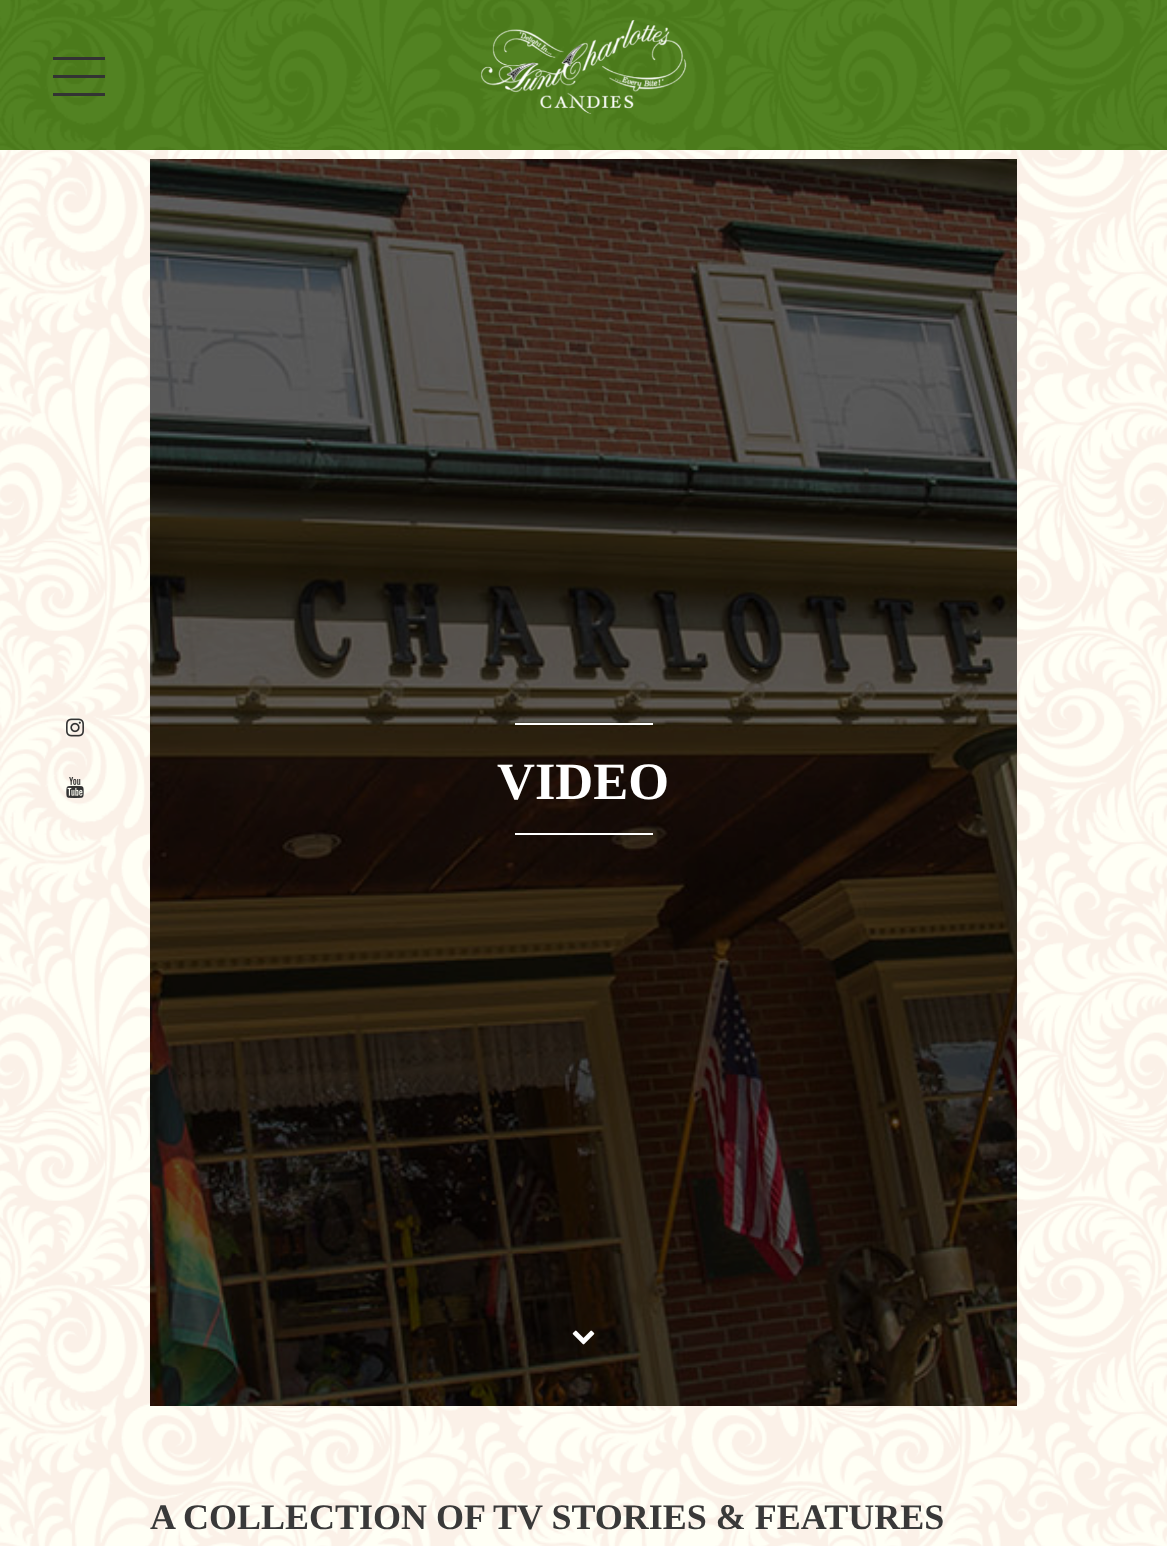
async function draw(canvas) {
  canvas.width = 1167
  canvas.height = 1546
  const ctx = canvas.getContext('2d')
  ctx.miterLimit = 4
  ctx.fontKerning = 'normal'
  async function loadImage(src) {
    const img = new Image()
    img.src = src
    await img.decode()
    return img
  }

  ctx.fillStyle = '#fff'
  ctx.fillRect(0, 0, 1167, 1546)
  ctx.drawImage(await loadImage('image0.png'), 0, 150, 1167, 1396)
  ctx.drawImage(await loadImage('image1.png'), 66, 718, 18, 19)
  ctx.drawImage(await loadImage('image2.png'), 66, 777, 18, 21)
  ctx.drawImage(await loadImage('image3.png'), 0, 0, 1167, 150)
  ctx.fillStyle = '#333'
  ctx.fillRect(53, 57, 52, 3)
  ctx.fillRect(53, 75, 52, 3)
  ctx.fillRect(53, 93, 52, 3)
  ctx.drawImage(await loadImage('image4.png'), 481, 19, 206, 95)
  ctx.drawImage(await loadImage('image5.png'), 150, 159, 867, 1247)
  ctx.fillStyle = '#fff'
  ctx.fillRect(515, 723, 138, 2)
  ctx.font = 'bold 52.5px Liberation Serif'
  ctx.fillText('VIDEO', 497, 799)
  ctx.fillRect(515, 833, 138, 2)
  ctx.drawImage(await loadImage('image6.png'), 572, 1330, 23, 15)
  ctx.font = 'bold 36px Liberation Serif'
  ctx.fillStyle = '#393939'
  ctx.fillText('A COLLECTION OF TV STORIES & FEATURES', 150, 1529)
}

draw(document.querySelector('canvas'))
